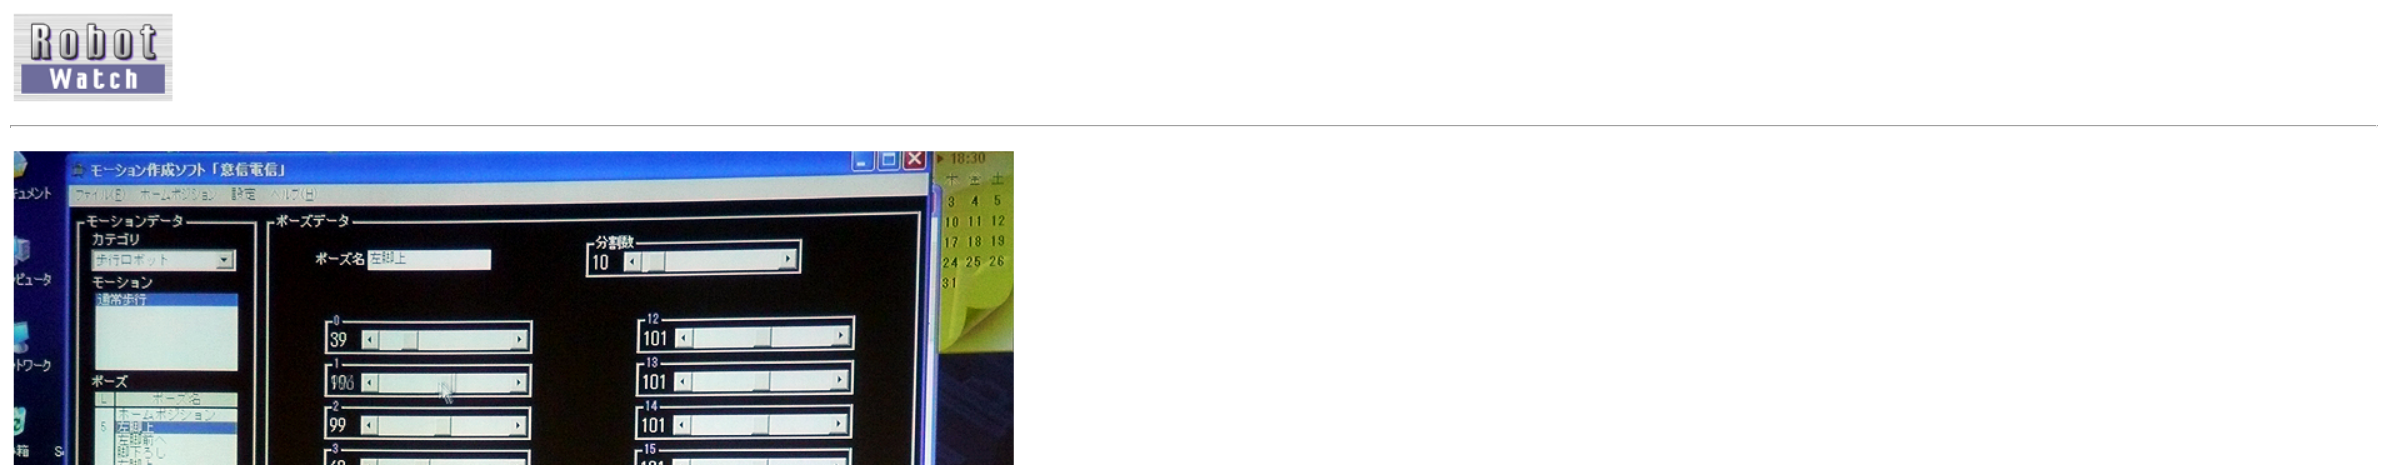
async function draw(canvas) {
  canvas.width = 2387
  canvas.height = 465
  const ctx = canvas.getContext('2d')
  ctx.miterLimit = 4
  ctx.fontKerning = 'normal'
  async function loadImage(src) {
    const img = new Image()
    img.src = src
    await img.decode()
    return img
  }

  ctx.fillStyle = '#fff'
  ctx.fillRect(0, 0, 2387, 465)
  ctx.drawImage(await loadImage('image0.png'), 13, 13, 160, 89)
  ctx.fillStyle = '#9f9f9f'
  ctx.fillRect(10, 125, 2368, 1)
  ctx.fillStyle = '#eee'
  ctx.fillRect(2376, 125, 1, 3)
  ctx.fillRect(10, 126, 2368, 1)
  ctx.fillStyle = '#9f9f9f'
  ctx.fillRect(10, 125, 1, 3)
  ctx.drawImage(await loadImage('image1.png'), 13, 151, 1001, 314)
}

draw(document.querySelector('canvas'))
